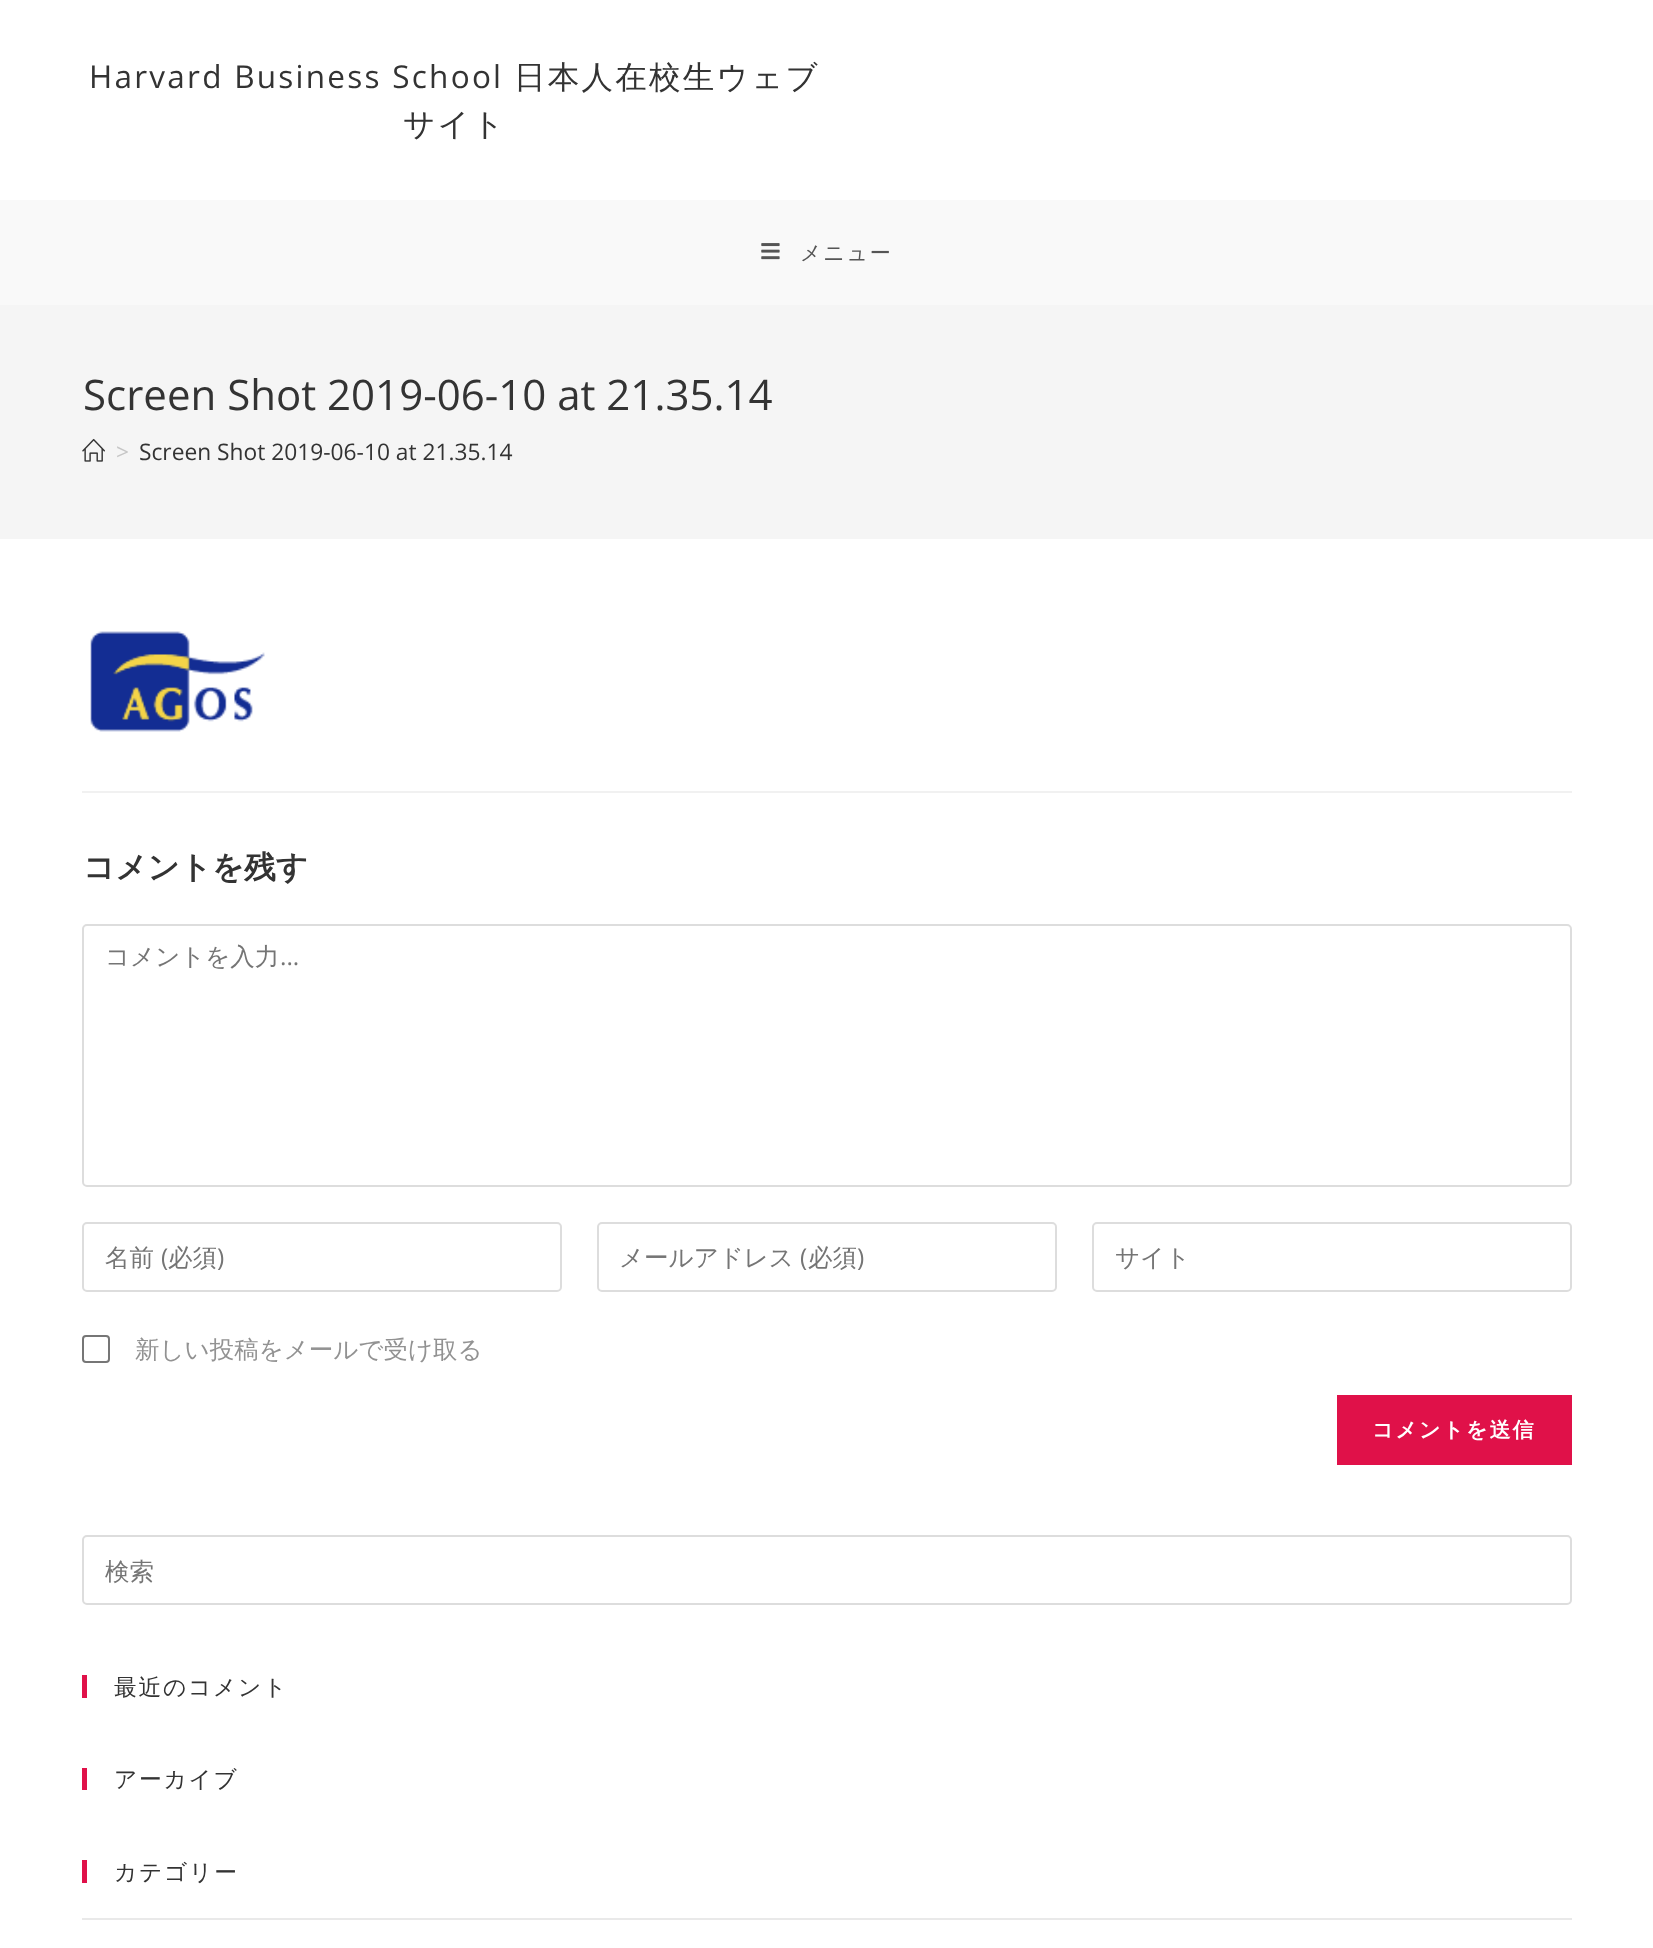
async function draw(canvas) {
  canvas.width = 1653
  canvas.height = 1948
  const ctx = canvas.getContext('2d')
  ctx.miterLimit = 4
  ctx.fontKerning = 'normal'
  async function loadImage(src) {
    const img = new Image()
    img.src = src
    await img.decode()
    return img
  }

  ctx.fillStyle = '#fff'
  ctx.fillRect(0, 0, 1653, 1948)
  ctx.letterSpacing = '2.25px'
  ctx.font = '31.5px Open Sans'
  ctx.fillStyle = '#333'
  ctx.fillText('Harvard Business School', 89, 88)
  ctx.font = '500 31.5px WenQuanYi Zen Hei'
  ctx.fillText('日本人在校生ウェブ', 514, 88)
  ctx.fillText('サイト', 403, 135)
  ctx.fillStyle = '#f9f9f9'
  ctx.fillRect(0, 200, 1653, 105)
  ctx.drawImage(await loadImage('image0.png'), 761, 243, 19, 17)
  ctx.letterSpacing = '1.75px'
  ctx.font = '500 21px WenQuanYi Zen Hei'
  ctx.fillStyle = '#555'
  ctx.fillText('メニュー', 800, 260)
  ctx.fillStyle = '#f5f5f5'
  ctx.fillRect(0, 305, 1653, 234)
  ctx.letterSpacing = '0px'
  ctx.font = '42px Open Sans'
  ctx.fillStyle = '#333'
  ctx.fillText('Screen Shot 2019-06-10 at 21.35.14', 83, 410)
  ctx.drawImage(await loadImage('image1.png'), 82, 438, 23, 24)
  ctx.font = '22.75px Open Sans'
  ctx.fillStyle = '#c6c6c6'
  ctx.fillText('>', 116, 460)
  ctx.fillStyle = '#333'
  ctx.fillText('Screen Shot 2019-06-10 at 21.35.14', 139, 460)
  ctx.drawImage(await loadImage('image2.png'), 90, 631, 175, 101)
  ctx.fillStyle = '#f1f1f1'
  ctx.fillRect(82, 791, 1490, 2)
  ctx.font = 'bold 31.5px WenQuanYi Zen Hei'
  ctx.fillStyle = '#333'
  ctx.fillText('コメントを残す', 83, 878)
  ctx.beginPath()
  ctx.roundRect(83, 925, 1488, 261, 4)
  ctx.strokeStyle = '#ddd'
  ctx.lineWidth = 2
  ctx.stroke()
  ctx.font = '500 24.5px WenQuanYi Zen Hei'
  ctx.fillStyle = '#757575'
  ctx.fillText('コメントを入力', 105, 965)
  ctx.font = '24.5px Open Sans'
  ctx.fillText('...', 280, 965)
  ctx.beginPath()
  ctx.roundRect(83, 1223, 478, 68, 4)
  ctx.stroke()
  ctx.font = '500 24.5px WenQuanYi Zen Hei'
  ctx.fillText('名前', 105, 1266)
  ctx.font = '24.5px Open Sans'
  ctx.fillText('(', 161, 1266)
  ctx.font = '500 24.5px WenQuanYi Zen Hei'
  ctx.fillText('必須', 168, 1266)
  ctx.font = '24.5px Open Sans'
  ctx.fillText(')', 217, 1266)
  ctx.beginPath()
  ctx.roundRect(598, 1223, 458, 68, 4)
  ctx.stroke()
  ctx.font = '500 24.5px WenQuanYi Zen Hei'
  ctx.fillText('メールアドレス', 619, 1266)
  ctx.font = '24.5px Open Sans'
  ctx.fillText('(', 800, 1266)
  ctx.font = '500 24.5px WenQuanYi Zen Hei'
  ctx.fillText('必須', 808, 1266)
  ctx.font = '24.5px Open Sans'
  ctx.fillText(')', 857, 1266)
  ctx.beginPath()
  ctx.roundRect(1093, 1223, 478, 68, 4)
  ctx.stroke()
  ctx.font = '500 24.5px WenQuanYi Zen Hei'
  ctx.fillText('サイト', 1115, 1266)
  ctx.beginPath()
  ctx.roundRect(83, 1336, 26, 26, 3)
  ctx.strokeStyle = '#767676'
  ctx.stroke()
  ctx.fillStyle = '#929292'
  ctx.fillText('新しい投稿をメールで受け取る', 135, 1358)
  ctx.fillStyle = '#e01149'
  ctx.fillRect(1337, 1395, 235, 70)
  ctx.letterSpacing = '2px'
  ctx.font = 'bold 21px WenQuanYi Zen Hei'
  ctx.fillStyle = '#fff'
  ctx.fillText('コメントを送信', 1372, 1437)
  ctx.beginPath()
  ctx.roundRect(83, 1536, 1488, 68, 4)
  ctx.strokeStyle = '#ddd'
  ctx.stroke()
  ctx.letterSpacing = '0px'
  ctx.font = '500 24.5px WenQuanYi Zen Hei'
  ctx.fillStyle = '#757575'
  ctx.fillText('検索', 105, 1580)
  ctx.fillStyle = '#e01149'
  ctx.fillRect(82, 1675, 5, 23)
  ctx.letterSpacing = '1.75px'
  ctx.font = '500 22.75px WenQuanYi Zen Hei'
  ctx.fillStyle = '#333'
  ctx.fillText('最近のコメント', 114, 1695)
  ctx.fillStyle = '#e01149'
  ctx.fillRect(82, 1768, 5, 22)
  ctx.fillStyle = '#333'
  ctx.fillText('アーカイブ', 114, 1787)
  ctx.fillStyle = '#e01149'
  ctx.fillRect(82, 1860, 5, 23)
  ctx.fillStyle = '#333'
  ctx.fillText('カテゴリー', 114, 1880)
  ctx.fillStyle = '#e9e9e9'
  ctx.fillRect(82, 1918, 1490, 2)
}

draw(document.querySelector('canvas'))
